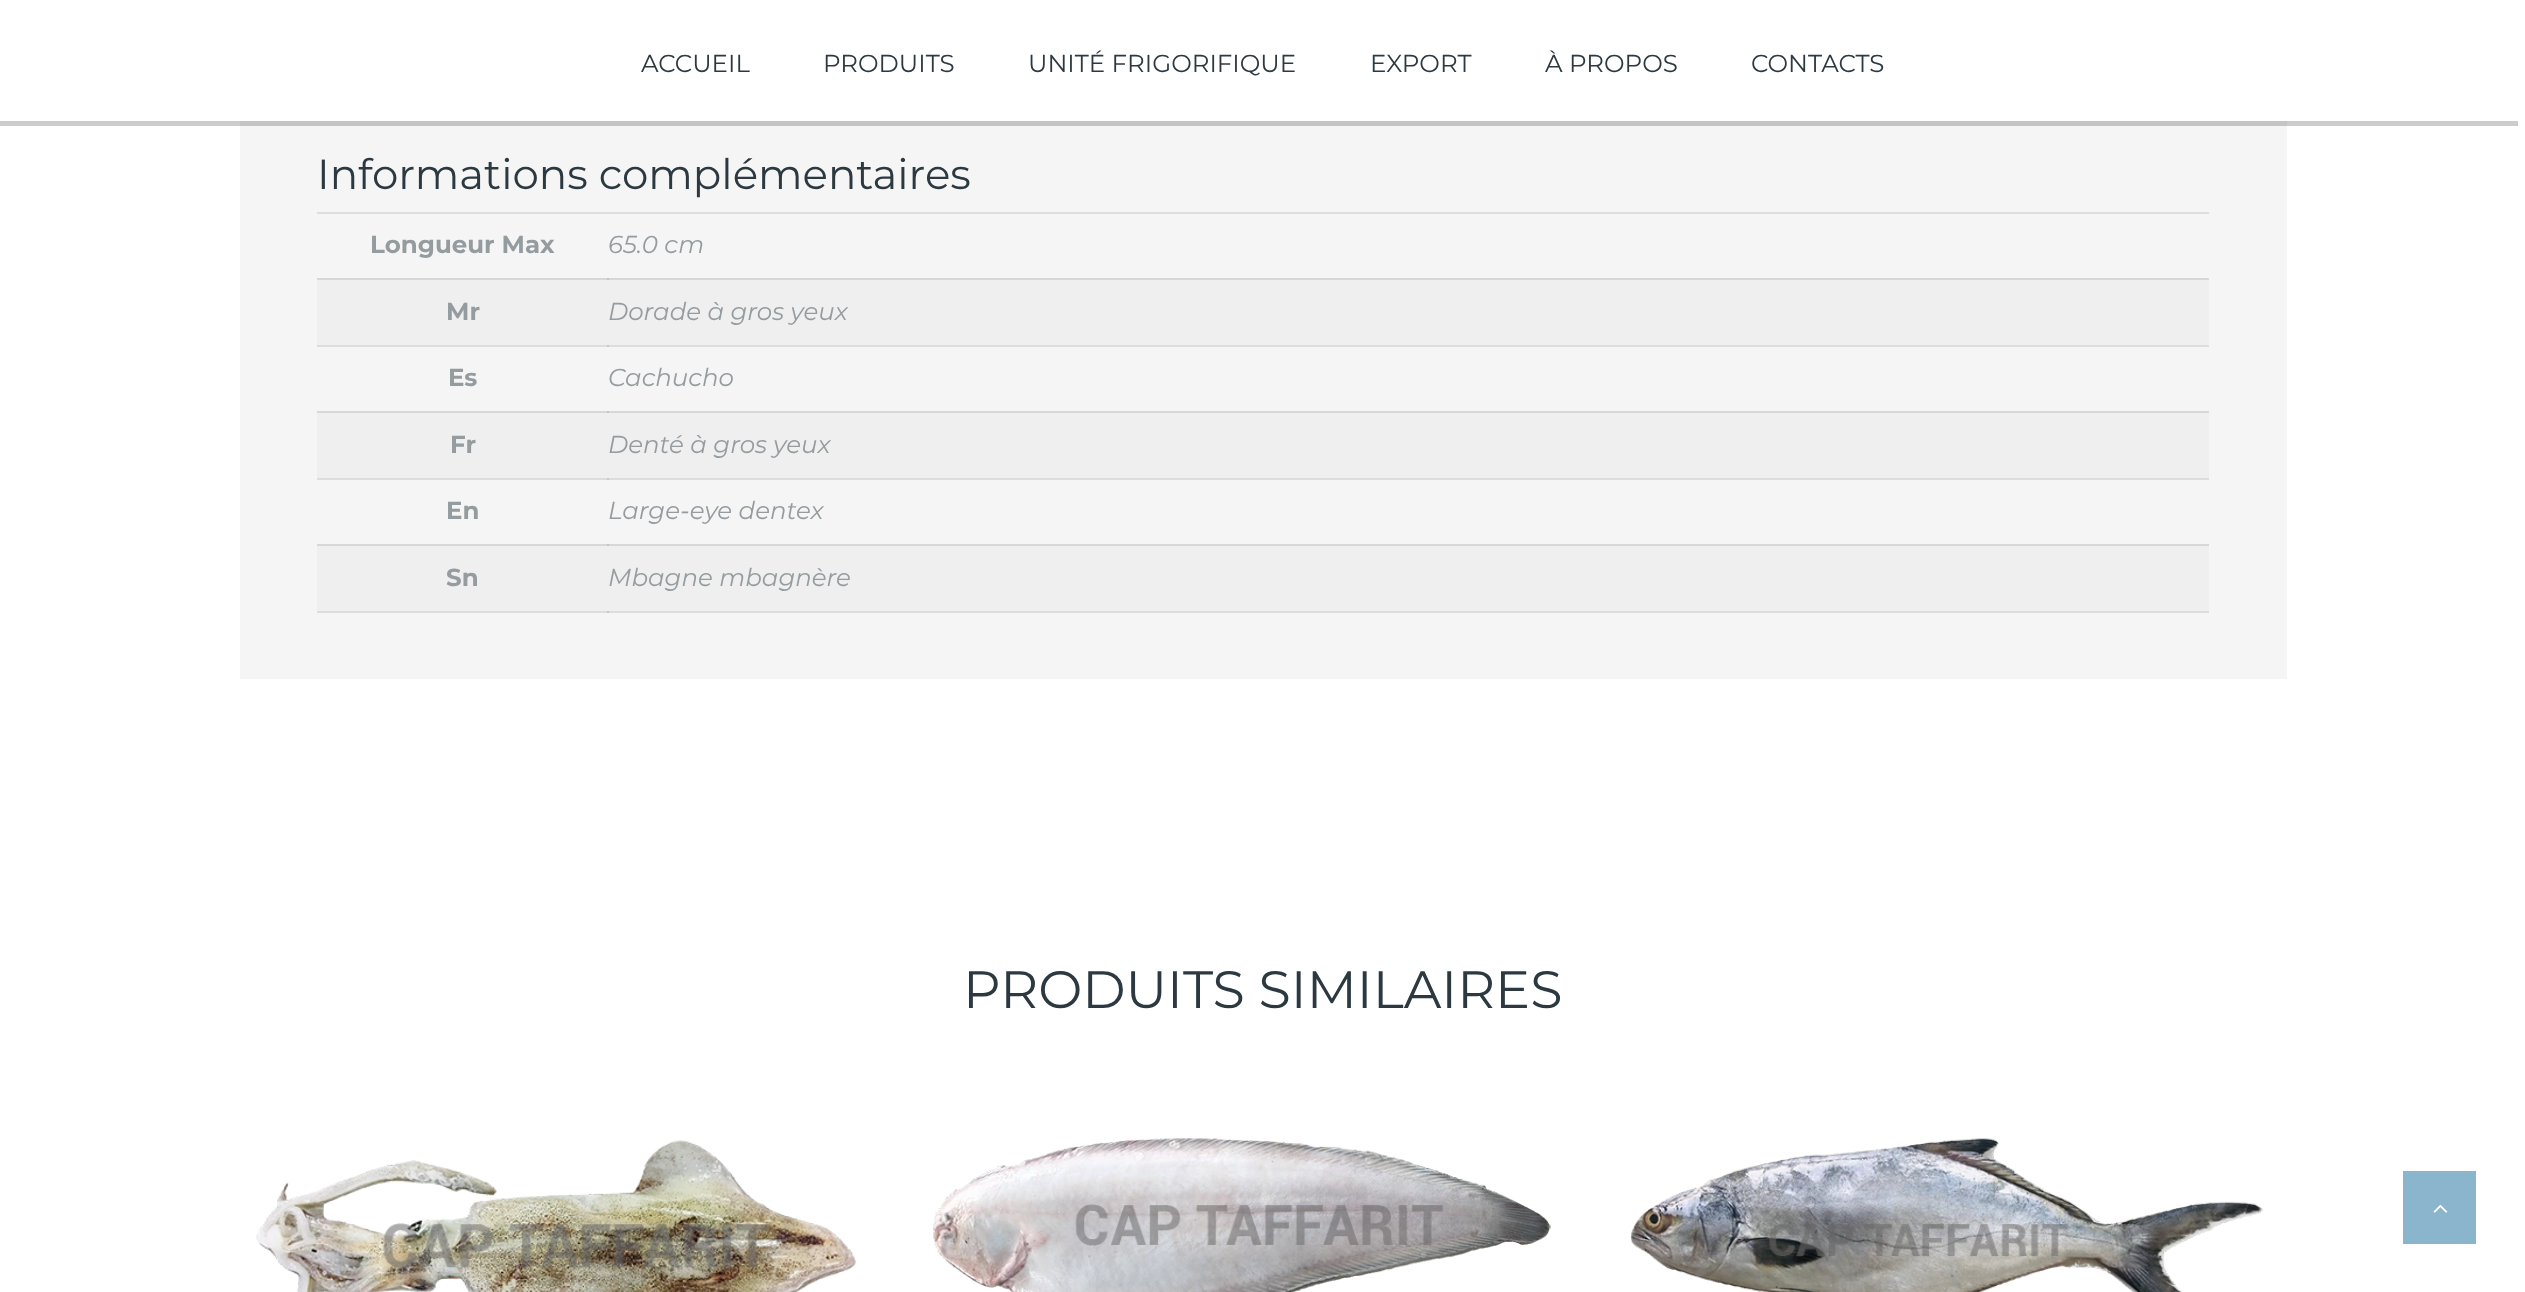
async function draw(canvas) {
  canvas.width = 2525
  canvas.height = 1292
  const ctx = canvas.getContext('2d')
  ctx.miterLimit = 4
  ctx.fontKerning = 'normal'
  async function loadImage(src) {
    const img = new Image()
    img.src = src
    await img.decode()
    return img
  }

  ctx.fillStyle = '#fff'
  ctx.fillRect(0, 0, 2525, 1292)
  ctx.fillStyle = '#f5f5f5'
  ctx.fillRect(240, 121, 2047, 558)
  ctx.fillStyle = '#00000033'
  ctx.beginPath()
  ctx.moveTo(-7, 5)
  ctx.lineTo(-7, 126)
  ctx.lineTo(2518, 126)
  ctx.lineTo(2518, 121)
  ctx.lineTo(0, 121)
  ctx.lineTo(0, 5)
  ctx.closePath()
  ctx.fill()
  ctx.font = '24.5px Montserrat'
  ctx.fillStyle = '#2c3941'
  ctx.fillText('ACCUEIL', 641, 72)
  ctx.fillText('PRODUITS', 823, 72)
  ctx.fillText('UNITÉ FRIGORIFIQUE', 1028, 72)
  ctx.fillText('EXPORT', 1370, 72)
  ctx.fillText('À PROPOS', 1545, 72)
  ctx.fillText('CONTACTS', 1751, 72)
  ctx.fillStyle = '#ddd'
  ctx.fillRect(317, 345, 1892, 2)
  ctx.fillRect(317, 478, 1892, 2)
  ctx.fillRect(317, 611, 1892, 2)
  ctx.font = '42px Montserrat'
  ctx.fillStyle = '#2c3941'
  ctx.fillText('Informations complémentaires', 317, 189)
  ctx.fillStyle = '#ddd'
  ctx.fillRect(317, 212, 1892, 2)
  ctx.font = 'bold 24.5px Montserrat'
  ctx.fillStyle = '#959ca0'
  ctx.fillText('Longueur Max', 370, 253)
  ctx.fillStyle = '#d7d7d7'
  ctx.fillRect(317, 278, 1892, 2)
  ctx.fillStyle = '#c2c2c2'
  ctx.fillRect(607, 278, 2, 2)
  ctx.font = 'italic 24.5px Montserrat'
  ctx.fillStyle = '#959ca0'
  ctx.fillText('65.0 cm', 608, 253)
  ctx.fillStyle = '#efefef'
  ctx.fillRect(317, 280, 1892, 65)
  ctx.font = 'bold 24.5px Montserrat'
  ctx.fillStyle = '#959ca0'
  ctx.fillText('Mr', 446, 320)
  ctx.fillStyle = '#c7c7c7'
  ctx.fillRect(607, 345, 2, 2)
  ctx.font = 'italic 24.5px Montserrat'
  ctx.fillStyle = '#959ca0'
  ctx.fillText('Dorade à gros yeux', 608, 320)
  ctx.font = 'bold 24.5px Montserrat'
  ctx.fillText('Es', 448, 386)
  ctx.fillStyle = '#d7d7d7'
  ctx.fillRect(317, 411, 1892, 2)
  ctx.fillStyle = '#c2c2c2'
  ctx.fillRect(607, 411, 2, 2)
  ctx.font = 'italic 24.5px Montserrat'
  ctx.fillStyle = '#959ca0'
  ctx.fillText('Cachucho', 608, 386)
  ctx.fillStyle = '#efefef'
  ctx.fillRect(317, 413, 1892, 65)
  ctx.font = 'bold 24.5px Montserrat'
  ctx.fillStyle = '#959ca0'
  ctx.fillText('Fr', 450, 453)
  ctx.fillStyle = '#c7c7c7'
  ctx.fillRect(607, 478, 2, 2)
  ctx.font = 'italic 24.5px Montserrat'
  ctx.fillStyle = '#959ca0'
  ctx.fillText('Denté à gros yeux', 608, 453)
  ctx.font = 'bold 24.5px Montserrat'
  ctx.fillText('En', 446, 519)
  ctx.fillStyle = '#d7d7d7'
  ctx.fillRect(317, 544, 1892, 2)
  ctx.fillStyle = '#c2c2c2'
  ctx.fillRect(607, 544, 2, 2)
  ctx.font = 'italic 24.5px Montserrat'
  ctx.fillStyle = '#959ca0'
  ctx.fillText('Large-eye dentex', 608, 519)
  ctx.fillStyle = '#efefef'
  ctx.fillRect(317, 546, 1892, 65)
  ctx.font = 'bold 24.5px Montserrat'
  ctx.fillStyle = '#959ca0'
  ctx.fillText('Sn', 446, 586)
  ctx.fillStyle = '#c7c7c7'
  ctx.fillRect(607, 611, 2, 2)
  ctx.font = 'italic 24.5px Montserrat'
  ctx.fillStyle = '#959ca0'
  ctx.fillText('Mbagne mbagnère', 608, 586)
  ctx.font = '52.5px Montserrat'
  ctx.fillStyle = '#2c3941'
  ctx.fillText('PRODUITS SIMILAIRES', 963, 1008)
  ctx.drawImage(await loadImage('image0.png'), 256, 1140, 600, 152)
  ctx.drawImage(await loadImage('image1.png'), 933, 1138, 618, 154)
  ctx.drawImage(await loadImage('image2.png'), 1631, 1138, 632, 154)
  ctx.fillStyle = '#8bb4cd'
  ctx.fillRect(2403, 1171, 73, 73)
  ctx.drawImage(await loadImage('image3.png'), 2433, 1204, 15, 9)
}

draw(document.querySelector('canvas'))
